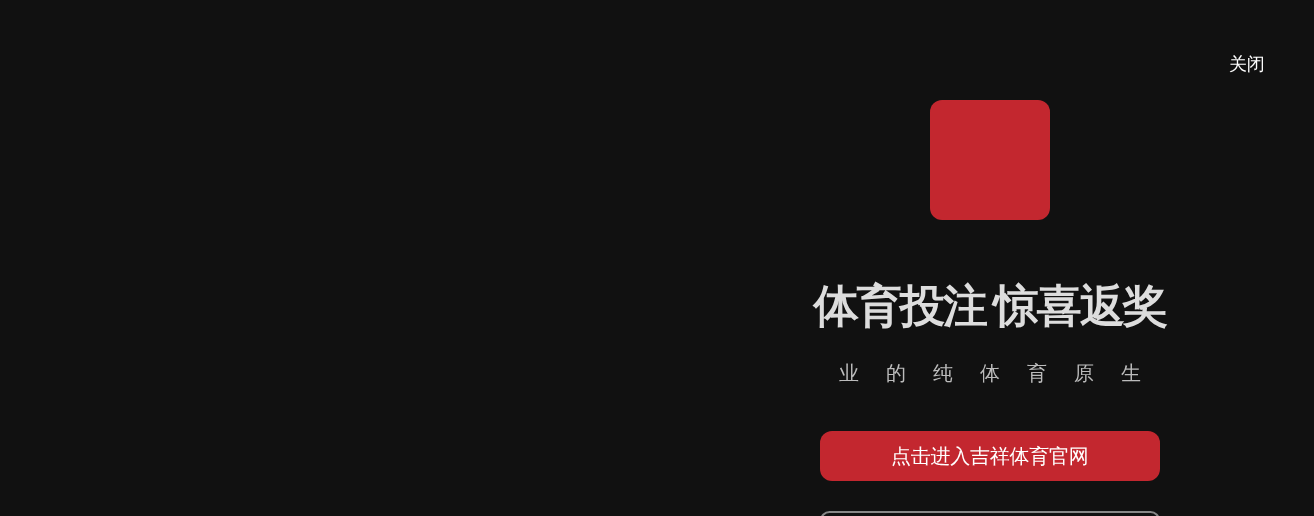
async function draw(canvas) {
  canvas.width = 1314
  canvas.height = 516
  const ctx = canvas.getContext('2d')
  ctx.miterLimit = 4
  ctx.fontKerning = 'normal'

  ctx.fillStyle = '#111'
  ctx.fillRect(0, 0, 1314, 516)
  ctx.letterSpacing = '-0.25px'
  ctx.font = '500 18px WenQuanYi Zen Hei'
  ctx.fillStyle = '#fff'
  ctx.fillText('关闭', 1229, 70)
  ctx.fillStyle = '#c3272f'
  ctx.beginPath()
  ctx.roundRect(930, 100, 120, 120, 12)
  ctx.fill()
  ctx.letterSpacing = '-1.9px'
  ctx.wordSpacing = '-4px'
  ctx.font = 'bold 45px WenQuanYi Zen Hei'
  ctx.fillStyle = '#ddd'
  ctx.fillText('体育投注 惊喜返奖', 813, 322)
  ctx.letterSpacing = '27px'
  ctx.wordSpacing = '0px'
  ctx.font = '500 20px WenQuanYi Zen Hei'
  ctx.fillStyle = '#bcbcbc'
  ctx.fillText('业的纯体育原生', 839, 380)
  ctx.fillStyle = '#c3272f'
  ctx.beginPath()
  ctx.roundRect(820, 431, 340, 50, 12)
  ctx.fill()
  ctx.letterSpacing = '-0.25px'
  ctx.fillStyle = '#fff'
  ctx.fillText('点击进入吉祥体育官网', 891, 463)
  ctx.beginPath()
  ctx.roundRect(821, 512, 338, 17, 11)
  ctx.strokeStyle = '#888'
  ctx.lineWidth = 2
  ctx.stroke()
}

draw(document.querySelector('canvas'))
